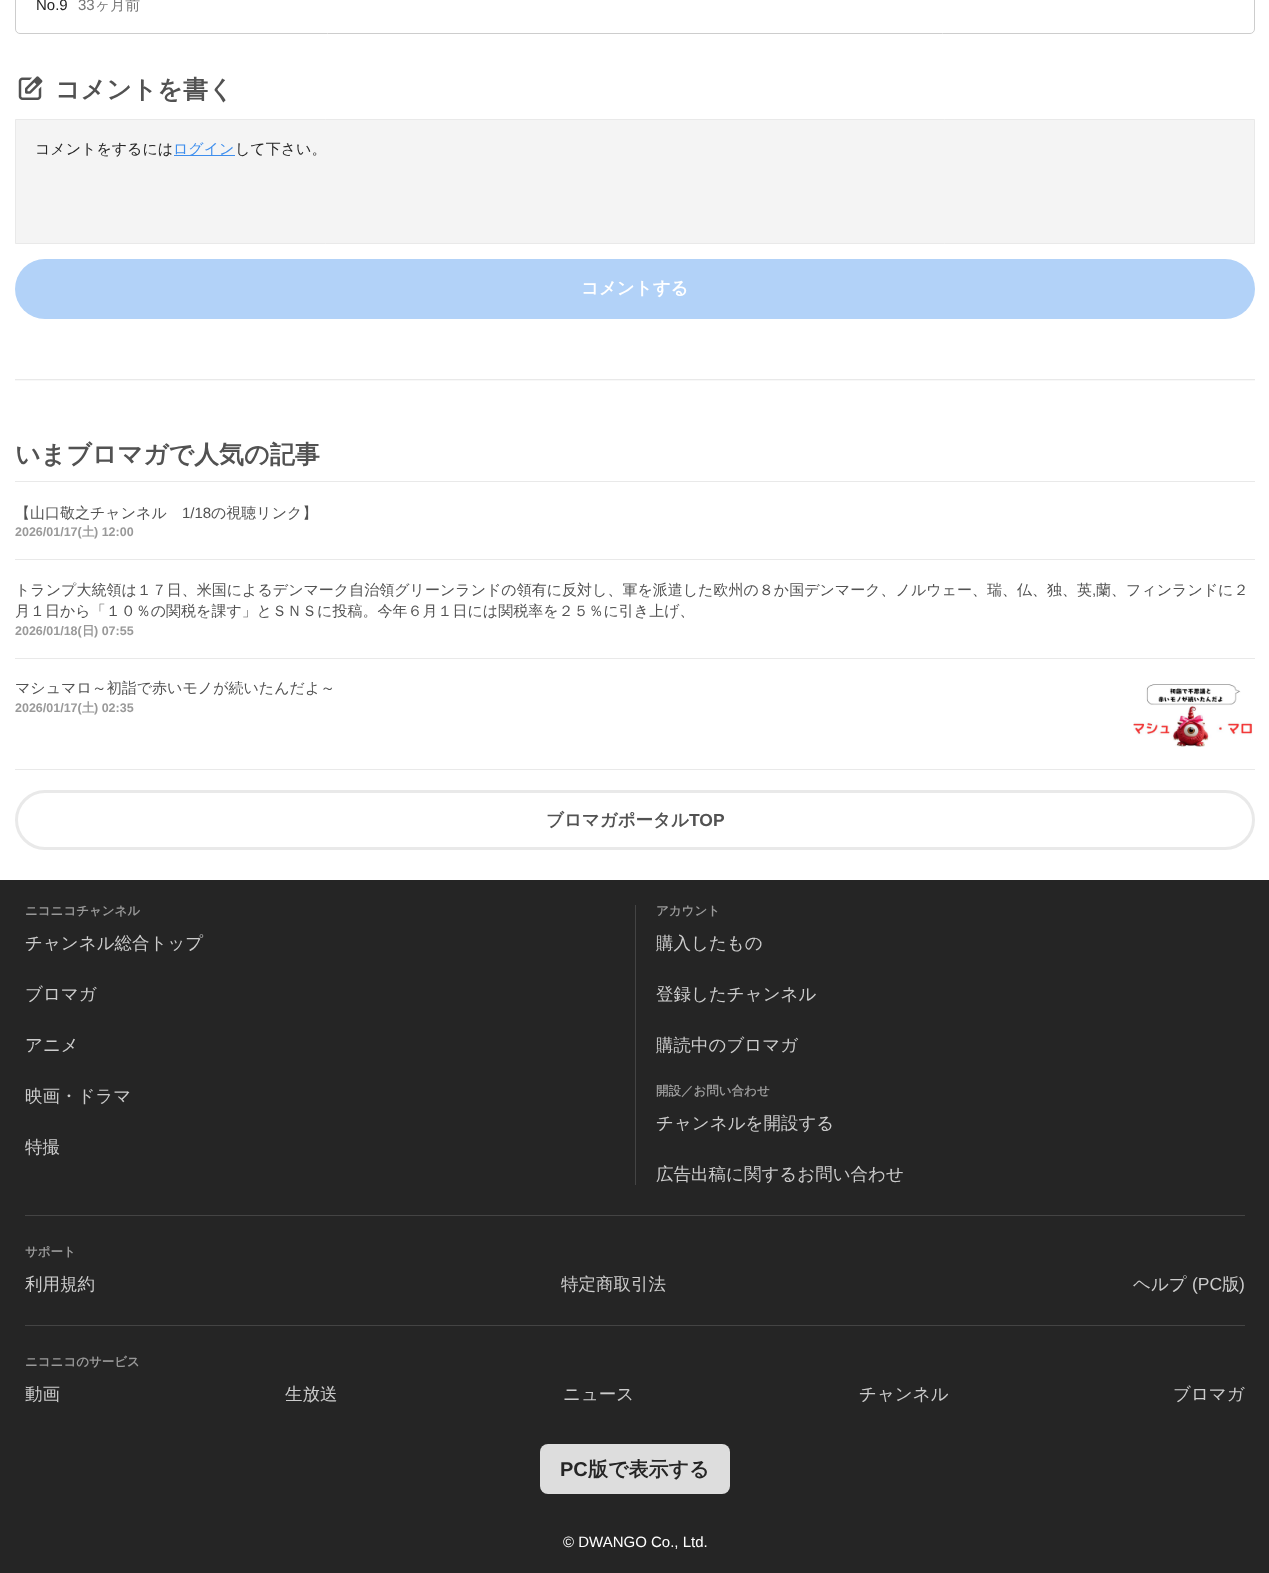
async function draw(canvas) {
  canvas.width = 1269
  canvas.height = 1573
  const ctx = canvas.getContext('2d')
  ctx.miterLimit = 4
  ctx.fontKerning = 'normal'
  async function loadImage(src) {
    const img = new Image()
    img.src = src
    await img.decode()
    return img
  }

  ctx.fillStyle = '#fff'
  ctx.fillRect(0, 0, 1269, 1573)
  ctx.beginPath()
  ctx.roundRect(15.5, -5.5, 1239, 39, 4.5)
  ctx.strokeStyle = '#cdcdcd'
  ctx.stroke()
  ctx.font = '15px Liberation Sans'
  ctx.fillStyle = '#252525'
  ctx.fillText('No.9', 36, 10)
  ctx.fillStyle = '#777'
  ctx.fillText('33', 78, 10)
  ctx.font = '500 15px WenQuanYi Zen Hei'
  ctx.fillText('ヶ月前', 95, 10)
  ctx.drawImage(await loadImage('image0.png'), 18, 76, 25, 24)
  ctx.font = 'bold 25px WenQuanYi Zen Hei'
  ctx.fillStyle = '#525252'
  ctx.fillText('コメントを書く', 55, 98)
  ctx.fillStyle = '#f4f4f4'
  ctx.beginPath()
  ctx.rect(15.5, 119.5, 1239, 124)
  ctx.fill()
  ctx.strokeStyle = '#e9e9e9'
  ctx.stroke()
  ctx.font = '500 15px WenQuanYi Zen Hei'
  ctx.fillStyle = '#252525'
  ctx.fillText('コメントをするには', 35, 154)
  ctx.fillStyle = '#3e8eed'
  ctx.fillRect(174, 155, 61, 1)
  ctx.fillText('ログイン', 173, 154)
  ctx.fillStyle = '#252525'
  ctx.fillText('して下さい。', 235, 154)
  ctx.fillStyle = '#b2d2f8'
  ctx.beginPath()
  ctx.roundRect(15, 259, 1240, 60, 30)
  ctx.fill()
  ctx.font = 'bold 17.5px WenQuanYi Zen Hei'
  ctx.fillStyle = '#fff'
  ctx.fillText('コメントする', 581, 294)
  ctx.fillStyle = '#e9e9e9'
  ctx.fillRect(15, 379, 1240, 1)
  ctx.fillStyle = '#f8f8f8'
  ctx.fillRect(15, 380, 1240, 1)
  ctx.font = 'bold 25px WenQuanYi Zen Hei'
  ctx.fillStyle = '#525252'
  ctx.fillText('いまブロマガで人気の記事', 15, 463)
  ctx.fillStyle = '#e9e9e9'
  ctx.fillRect(15, 481, 1240, 1)
  ctx.font = '500 15px WenQuanYi Zen Hei'
  ctx.fillStyle = '#525252'
  ctx.fillText('【山口敬之チャンネル', 15, 518)
  ctx.font = '15px Liberation Sans'
  ctx.fillText('1/18', 182, 518)
  ctx.font = '500 15px WenQuanYi Zen Hei'
  ctx.fillText('の視聴リンク】', 211, 518)
  ctx.font = 'bold 12.5px Liberation Sans'
  ctx.fillStyle = '#999'
  ctx.fillText('2026/01/17(', 15, 536)
  ctx.font = 'bold 12.5px WenQuanYi Zen Hei'
  ctx.fillText('土', 82, 536)
  ctx.font = 'bold 12.5px Liberation Sans'
  ctx.fillText(') 12:00', 94, 536)
  ctx.fillStyle = '#e9e9e9'
  ctx.fillRect(15, 559, 1240, 1)
  ctx.font = '500 15px WenQuanYi Zen Hei'
  ctx.fillStyle = '#525252'
  ctx.fillText('トランプ大統領は１７日、米国によるデンマーク自治領グリーンランドの領有に反対し、軍を派遣した欧州の８か国デンマーク、ノルウェー、瑞、仏、独、英', 15, 595)
  ctx.font = '15px Liberation Sans'
  ctx.fillText(',', 1092, 595)
  ctx.font = '500 15px WenQuanYi Zen Hei'
  ctx.fillText('蘭、フィンランドに２', 1096, 595)
  ctx.fillText('月１日から「１０％の関税を課す」とＳＮＳに投稿。今年６月１日には関税率を２５％に引き上げ、', 15, 616)
  ctx.font = 'bold 12.5px Liberation Sans'
  ctx.fillStyle = '#999'
  ctx.fillText('2026/01/18(', 15, 635)
  ctx.font = 'bold 12.5px WenQuanYi Zen Hei'
  ctx.fillText('日', 82, 635)
  ctx.font = 'bold 12.5px Liberation Sans'
  ctx.fillText(') 07:55', 94, 635)
  ctx.fillStyle = '#e9e9e9'
  ctx.fillRect(15, 658, 1240, 1)
  ctx.fillRect(15, 769, 1240, 1)
  ctx.font = '500 15px WenQuanYi Zen Hei'
  ctx.fillStyle = '#525252'
  ctx.fillText('マシュマロ～初詣で赤いモノが続いたんだよ～', 15, 693)
  ctx.font = 'bold 12.5px Liberation Sans'
  ctx.fillStyle = '#999'
  ctx.fillText('2026/01/17(', 15, 712)
  ctx.font = 'bold 12.5px WenQuanYi Zen Hei'
  ctx.fillText('土', 82, 712)
  ctx.font = 'bold 12.5px Liberation Sans'
  ctx.fillText(') 02:35', 94, 712)
  ctx.drawImage(await loadImage('image1.png'), 1133, 684, 120, 63)
  ctx.beginPath()
  ctx.roundRect(16.5, 791.5, 1237, 57, 28.5)
  ctx.lineWidth = 3
  ctx.stroke()
  ctx.font = 'bold 17.5px WenQuanYi Zen Hei'
  ctx.fillStyle = '#525252'
  ctx.fillText('ブロマガポータル', 546, 826)
  ctx.font = 'bold 17.5px Liberation Sans'
  ctx.fillText('TOP', 689, 826)
  ctx.fillStyle = '#252525'
  ctx.fillRect(0, 880, 1269, 693)
  ctx.font = 'bold 12.5px WenQuanYi Zen Hei'
  ctx.fillStyle = '#999'
  ctx.fillText('ニコニコチャンネル', 25, 915)
  ctx.font = '500 17.5px WenQuanYi Zen Hei'
  ctx.fillStyle = '#ccc'
  ctx.fillText('チャンネル総合トップ', 25, 949)
  ctx.fillText('ブロマガ', 25, 1000)
  ctx.fillText('アニメ', 25, 1051)
  ctx.fillText('映画・ドラマ', 25, 1102)
  ctx.fillText('特撮', 25, 1153)
  ctx.fillStyle = '#444'
  ctx.fillRect(635, 905, 1, 280)
  ctx.font = 'bold 12.5px WenQuanYi Zen Hei'
  ctx.fillStyle = '#999'
  ctx.fillText('アカウント', 656, 915)
  ctx.font = '500 17.5px WenQuanYi Zen Hei'
  ctx.fillStyle = '#ccc'
  ctx.fillText('購入したもの', 656, 949)
  ctx.fillText('登録したチャンネル', 656, 1000)
  ctx.fillText('購読中のブロマガ', 656, 1051)
  ctx.font = 'bold 12.5px WenQuanYi Zen Hei'
  ctx.fillStyle = '#999'
  ctx.fillText('開設／お問い合わせ', 656, 1095)
  ctx.font = '500 17.5px WenQuanYi Zen Hei'
  ctx.fillStyle = '#ccc'
  ctx.fillText('チャンネルを開設する', 656, 1129)
  ctx.fillText('広告出稿に関するお問い合わせ', 656, 1180)
  ctx.fillStyle = '#444'
  ctx.fillRect(25, 1215, 1220, 1)
  ctx.font = 'bold 12.5px WenQuanYi Zen Hei'
  ctx.fillStyle = '#999'
  ctx.fillText('サポート', 25, 1256)
  ctx.font = '500 17.5px WenQuanYi Zen Hei'
  ctx.fillStyle = '#ccc'
  ctx.fillText('利用規約', 25, 1290)
  ctx.fillText('特定商取引法', 561, 1290)
  ctx.fillText('ヘルプ', 1133, 1290)
  ctx.font = '17.5px Liberation Sans'
  ctx.fillText('(PC', 1192, 1290)
  ctx.font = '500 17.5px WenQuanYi Zen Hei'
  ctx.fillText('版', 1222, 1290)
  ctx.font = '17.5px Liberation Sans'
  ctx.fillText(')', 1239, 1290)
  ctx.fillStyle = '#444'
  ctx.fillRect(25, 1325, 1220, 1)
  ctx.font = 'bold 12.5px WenQuanYi Zen Hei'
  ctx.fillStyle = '#999'
  ctx.fillText('ニコニコのサービス', 25, 1366)
  ctx.font = '500 17.5px WenQuanYi Zen Hei'
  ctx.fillStyle = '#ccc'
  ctx.fillText('動画', 25, 1400)
  ctx.fillText('生放送', 285, 1400)
  ctx.fillText('ニュース', 563, 1400)
  ctx.fillText('チャンネル', 859, 1400)
  ctx.fillText('ブロマガ', 1173, 1400)
  ctx.fillStyle = '#ddd'
  ctx.beginPath()
  ctx.roundRect(540, 1444, 190, 50, 8)
  ctx.fill()
  ctx.font = 'bold 20px Liberation Sans'
  ctx.fillStyle = '#252525'
  ctx.fillText('PC', 560, 1476)
  ctx.font = 'bold 20px WenQuanYi Zen Hei'
  ctx.fillText('版で表示する', 588, 1476)
  ctx.font = '15px Liberation Sans'
  ctx.fillStyle = '#fff'
  ctx.fillText('© DWANGO Co., Ltd.', 563, 1547)
}

draw(document.querySelector('canvas'))
